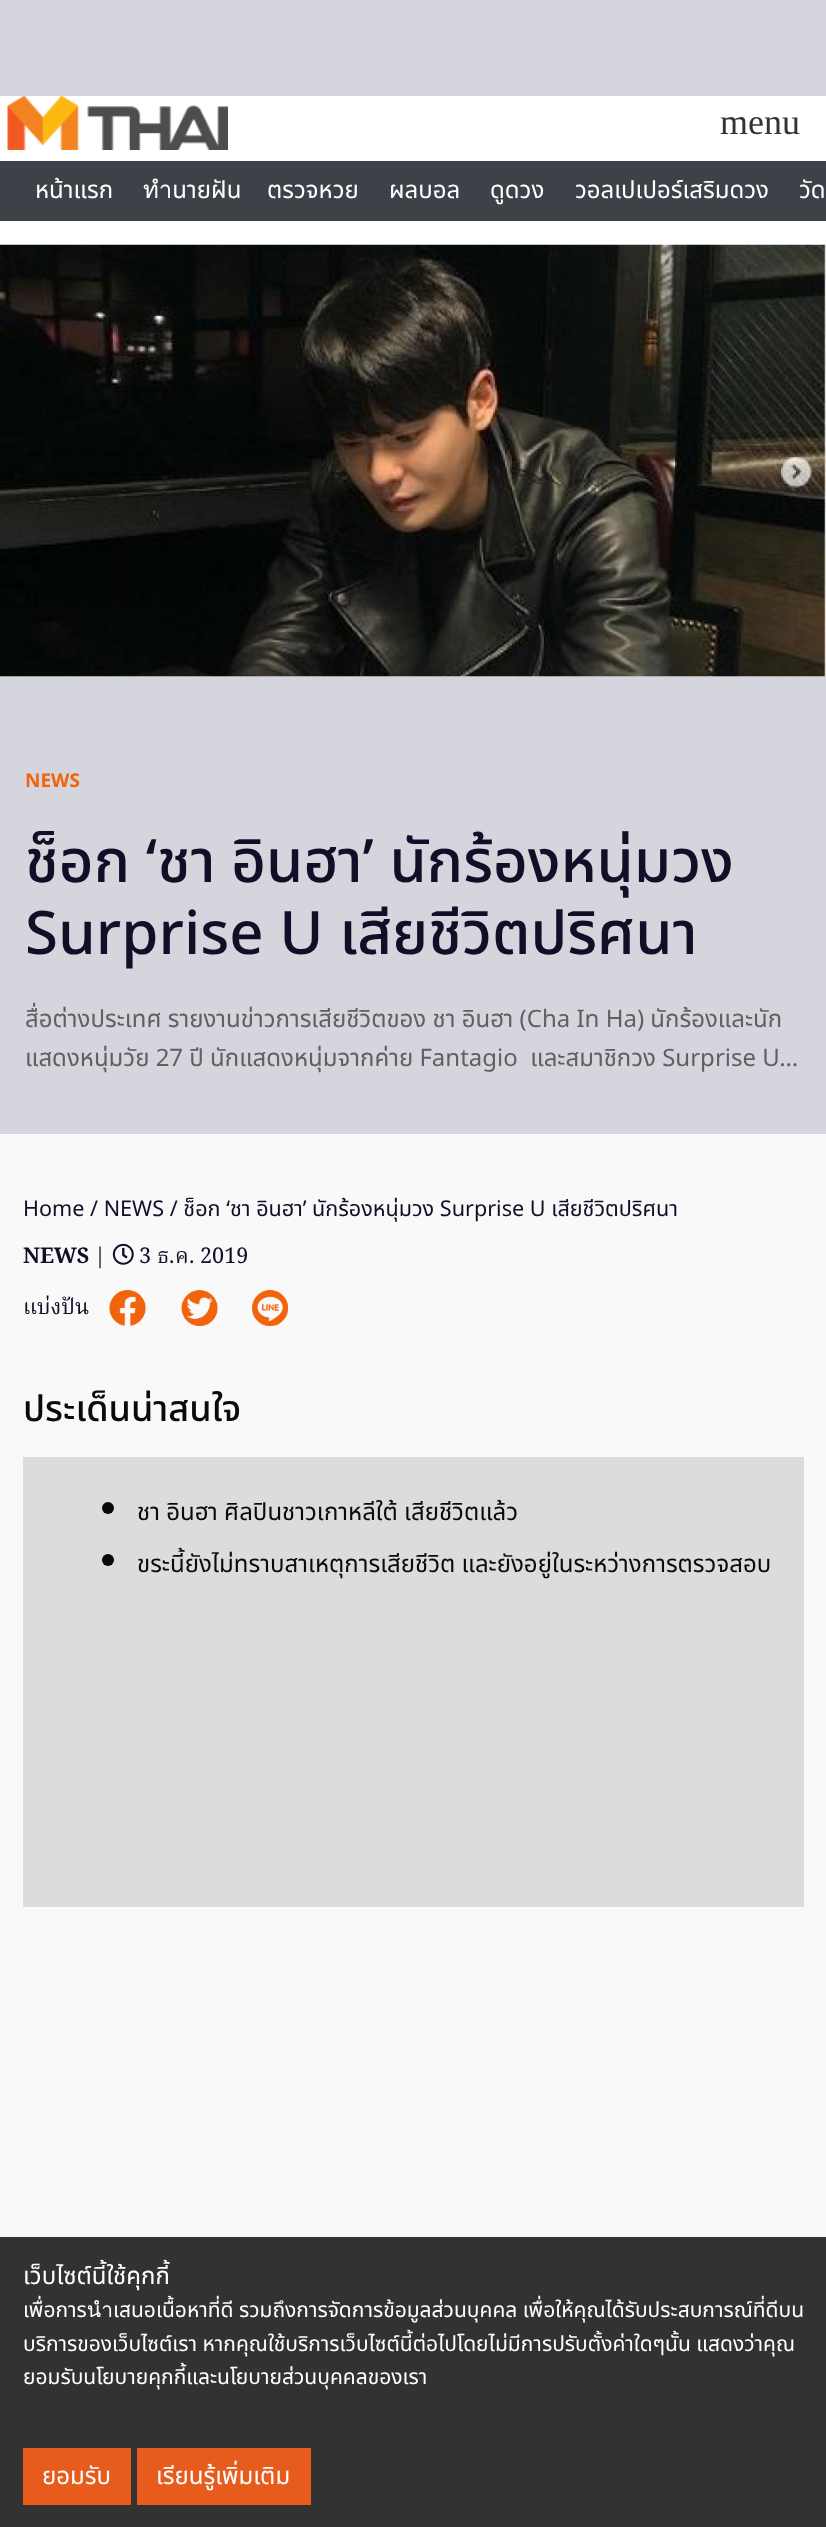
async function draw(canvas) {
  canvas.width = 826
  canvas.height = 2527
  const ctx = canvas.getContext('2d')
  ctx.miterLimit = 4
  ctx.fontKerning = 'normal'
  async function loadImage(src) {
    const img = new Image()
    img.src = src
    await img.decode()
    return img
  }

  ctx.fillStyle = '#fff'
  ctx.fillRect(0, 0, 826, 2527)
  ctx.fillStyle = '#d5d5dd'
  ctx.fillRect(0, 0, 826, 96)
  ctx.drawImage(await loadImage('image0.png'), 7, 96, 221, 54)
  ctx.font = '36px Liberation Serif'
  ctx.fillStyle = '#333'
  ctx.fillText('menu', 720, 134)
  ctx.fillStyle = '#3d4248'
  ctx.fillRect(0, 161, 826, 60)
  ctx.font = '24px Noto Sans Thai'
  ctx.fillStyle = '#fff'
  ctx.fillText('หน้าแรก', 35, 198)
  ctx.fillText('ทำนายฝัน', 143, 198)
  ctx.fillText('ตรวจหวย', 267, 198)
  ctx.fillText('ผลบอล', 389, 198)
  ctx.fillText('ดูดวง', 490, 198)
  ctx.fillText('วอลเปเปอร์เสริมดวง', 575, 198)
  ctx.fillText('วัด', 799, 198)
  ctx.fillStyle = '#d5d5dd'
  ctx.fillRect(0, 676, 826, 458)
  ctx.drawImage(await loadImage('image1.png'), 0, 244, 826, 433)
  ctx.font = 'bold 19px Noto Sans Thai'
  ctx.fillStyle = '#f1630d'
  ctx.fillText('NEWS', 25, 787)
  ctx.font = '500 60px Noto Sans Thai'
  ctx.fillStyle = '#110f27'
  ctx.fillText('ช็อก ‘ชา อินฮา’ นักร้องหนุ่มวง', 25, 882)
  ctx.fillText('Surprise U เสียชีวิตปริศนา', 25, 954)
  ctx.font = '24px Noto Sans Thai'
  ctx.fillStyle = '#606060'
  ctx.fillText('สื่อต่างประเทศ รายงานข่าวการเสียชีวิตของ ชา อินฮา (Cha In Ha) นักร้องและนัก', 25, 1027)
  ctx.fillText('แสดงหนุ่มวัย 27 ปี นักแสดงหนุ่มจากค่าย Fantagio  และสมาชิกวง Surprise U…', 25, 1066)
  ctx.fillStyle = '#f9f9f9'
  ctx.fillRect(0, 1134, 826, 1103)
  ctx.font = '21.6px Noto Sans Thai'
  ctx.fillStyle = '#110f27'
  ctx.fillText('Home / NEWS / ช็อก ‘ชา อินฮา’ นักร้องหนุ่มวง Surprise U เสียชีวิตปริศนา', 23, 1216)
  ctx.font = 'bold 21.6px Noto Serif'
  ctx.fillText('NEWS', 23, 1263)
  ctx.font = '21.6px Noto Serif'
  ctx.fillText('|', 94, 1263)
  ctx.drawImage(await loadImage('image2.png'), 112, 1243, 22, 22)
  ctx.fillText('3', 139, 1263)
  ctx.font = '21.6px Noto Serif Thai'
  ctx.fillText('ธ ค', 157, 1263)
  ctx.font = '21.6px Noto Serif'
  ctx.fillText('. 2019', 189, 1263)
  ctx.fillText('.', 169, 1263)
  ctx.font = '21.6px Noto Serif Thai'
  ctx.fillText('แบ่งปัน', 23, 1314)
  ctx.drawImage(await loadImage('image3.png'), 109, 1290, 37, 36)
  ctx.drawImage(await loadImage('image4.png'), 181, 1290, 37, 36)
  ctx.drawImage(await loadImage('image5.png'), 252, 1290, 36, 36)
  ctx.font = '500 36px Noto Sans Thai'
  ctx.fillStyle = '#0a0a0a'
  ctx.fillText('ประเด็นน่าสนใจ', 23, 1421)
  ctx.fillStyle = '#dcdcdc'
  ctx.fillRect(23, 1457, 781, 450)
  ctx.fillStyle = '#0a0a0a'
  ctx.beginPath()
  ctx.arc(108, 1508, 6, 0, 2 * Math.PI)
  ctx.fill()
  ctx.font = '24px Noto Sans Thai'
  ctx.fillText('ชา อินฮา ศิลปินชาวเกาหลีใต้ เสียชีวิตแล้ว', 137, 1520)
  ctx.beginPath()
  ctx.arc(108, 1560, 6, 0, 2 * Math.PI)
  ctx.fill()
  ctx.fillText('ขระนี้ยังไม่ทราบสาเหตุการเสียชีวิต และยังอยู่ในระหว่างการตรวจสอบ', 137, 1572)
  ctx.fillStyle = '#323232'
  ctx.fillRect(0, 2237, 826, 290)
  ctx.fillStyle = '#fff'
  ctx.fillText('เว็บไซต์นี้ใช้คุกกี้', 23, 2284)
  ctx.font = '21px Noto Sans Thai'
  ctx.fillText('เพื่อการนำเสนอเนื้อหาที่ดี รวมถึงการจัดการข้อมูลส่วนบุคคล เพื่อให้คุณได้รับประสบการณ์ที่ดีบน', 23, 2317)
  ctx.fillText('บริการของเว็บไซต์เรา หากคุณใช้บริการเว็บไซต์นี้ต่อไปโดยไม่มีการปรับตั้งค่าใดๆนั้น แสดงว่าคุณ', 23, 2351)
  ctx.fillText('ยอมรับนโยบายคุกกี้และนโยบายส่วนบุคคลของเรา', 23, 2384)
  ctx.fillStyle = '#e75c1d'
  ctx.fillRect(23, 2448, 108, 57)
  ctx.font = '24px Noto Sans Thai'
  ctx.fillStyle = '#fff'
  ctx.fillText('ยอมรับ', 42, 2484)
  ctx.fillStyle = '#e75c1d'
  ctx.fillRect(137, 2448, 174, 57)
  ctx.fillStyle = '#fff'
  ctx.fillText('เรียนรู้เพิ่มเติม', 156, 2484)
}

draw(document.querySelector('canvas'))
